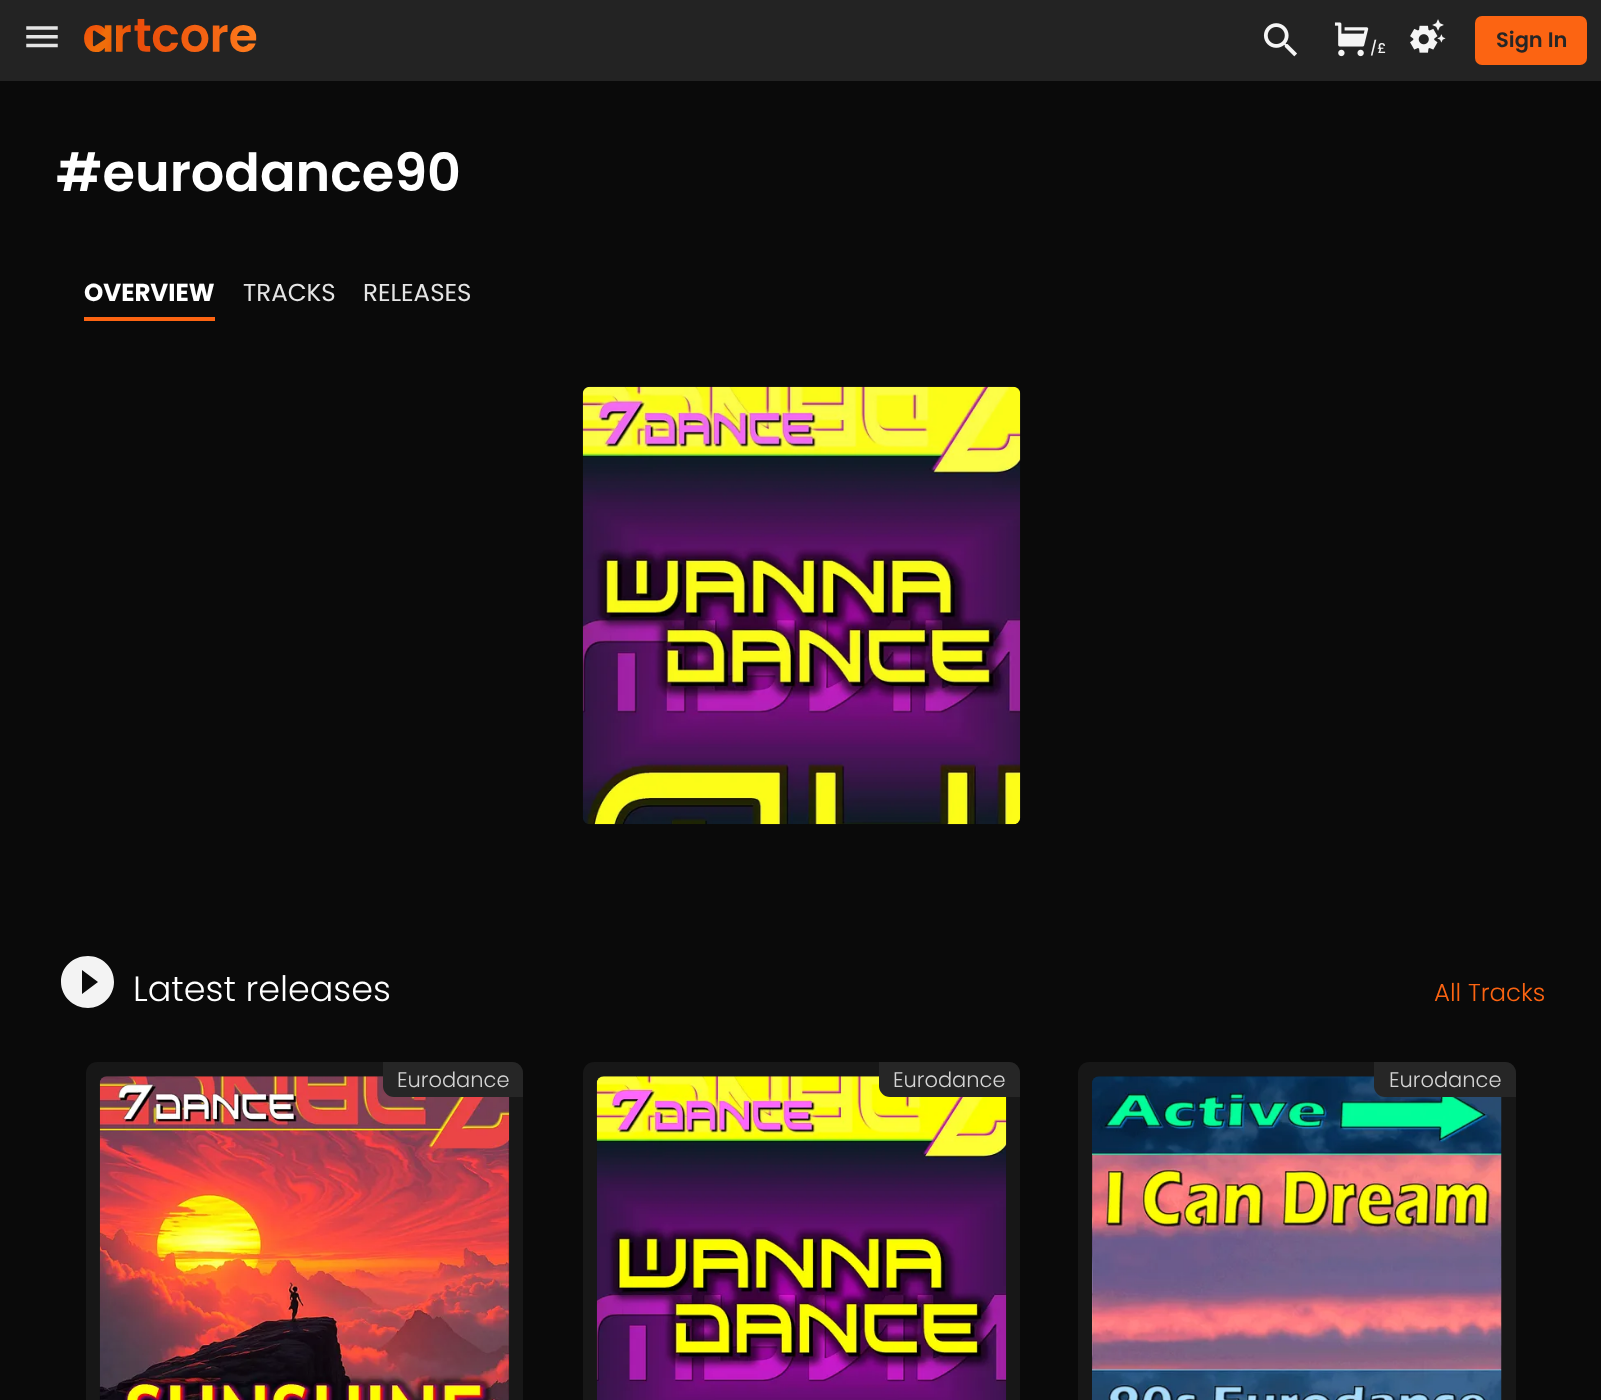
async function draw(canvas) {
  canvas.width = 1601
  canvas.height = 1400
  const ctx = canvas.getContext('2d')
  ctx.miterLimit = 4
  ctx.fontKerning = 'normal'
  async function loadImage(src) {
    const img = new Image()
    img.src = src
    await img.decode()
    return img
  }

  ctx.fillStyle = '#0a0a0a'
  ctx.fillRect(0, 0, 1601, 1400)
  ctx.fillStyle = '#232323'
  ctx.fillRect(0, 0, 1601, 81)
  ctx.drawImage(await loadImage('image0.png'), 26, 26, 32, 22)
  ctx.drawImage(await loadImage('image1.png'), 84, 18, 173, 35)
  ctx.drawImage(await loadImage('image2.png'), 1263, 23, 34, 34)
  ctx.drawImage(await loadImage('image3.png'), 1334, 22, 35, 35)
  ctx.font = '500 14px Poppins'
  ctx.fillStyle = '#f5f5f5'
  ctx.fillText('/£', 1370, 53)
  ctx.drawImage(await loadImage('image4.png'), 1410, 19, 36, 34)
  ctx.fillStyle = '#fc6412'
  ctx.beginPath()
  ctx.roundRect(1475, 16, 112, 49, 7)
  ctx.fill()
  ctx.font = '600 21px Poppins'
  ctx.fillStyle = '#262626'
  ctx.fillText('Sign In', 1496, 47)
  ctx.font = '600 52.5px Poppins'
  ctx.fillStyle = '#fff'
  ctx.fillText('#eurodance90', 56, 191)
  ctx.font = 'bold 24.5px Poppins'
  ctx.fillText('OVERVIEW', 84, 301)
  ctx.fillStyle = '#fc6412'
  ctx.fillRect(84, 317, 131, 4)
  ctx.font = '24.5px Poppins'
  ctx.fillStyle = '#e5e5e5'
  ctx.fillText('TRACKS', 243, 301)
  ctx.fillText('RELEASES', 363, 301)
  ctx.drawImage(await loadImage('image5.png'), 582, 386, 439, 439)
  ctx.fillStyle = '#f3f3f3'
  ctx.beginPath()
  ctx.moveTo(88, 956)
  ctx.bezierCurveTo(73, 956, 61, 967, 61, 982)
  ctx.bezierCurveTo(61, 996, 73, 1008, 88, 1008)
  ctx.bezierCurveTo(102, 1008, 114, 996, 114, 982)
  ctx.bezierCurveTo(114, 967, 102, 956, 88, 956)
  ctx.closePath()
  ctx.moveTo(82, 994)
  ctx.lineTo(82, 970)
  ctx.lineTo(98, 982)
  ctx.closePath()
  ctx.fill()
  ctx.font = '300 35px Poppins'
  ctx.fillStyle = '#fff'
  ctx.fillText('Latest releases', 133, 1001)
  ctx.font = '300 24.5px Poppins'
  ctx.fillStyle = '#fc6412'
  ctx.fillText('All Tracks', 1434, 1001)
  ctx.fillStyle = '#171717'
  ctx.beginPath()
  ctx.roundRect(86, 1062, 437, 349, 11)
  ctx.fill()
  ctx.drawImage(await loadImage('image6.png'), 99, 1076, 411, 324)
  ctx.fillStyle = '#262626'
  ctx.beginPath()
  ctx.roundRect(383, 1062, 140, 35, [0, 11, 0, 11])
  ctx.fill()
  ctx.font = '300 21px Poppins'
  ctx.fillStyle = '#d4d4d4'
  ctx.fillText('Eurodance', 397, 1087)
  ctx.fillStyle = '#171717'
  ctx.beginPath()
  ctx.roundRect(583, 1062, 437, 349, 11)
  ctx.fill()
  ctx.drawImage(await loadImage('image7.png'), 596, 1076, 411, 324)
  ctx.fillStyle = '#262626'
  ctx.beginPath()
  ctx.roundRect(879, 1062, 141, 35, [0, 11, 0, 11])
  ctx.fill()
  ctx.fillStyle = '#d4d4d4'
  ctx.fillText('Eurodance', 893, 1087)
  ctx.fillStyle = '#171717'
  ctx.beginPath()
  ctx.roundRect(1078, 1062, 438, 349, 11)
  ctx.fill()
  ctx.drawImage(await loadImage('image8.png'), 1092, 1076, 410, 324)
  ctx.fillStyle = '#262626'
  ctx.beginPath()
  ctx.roundRect(1374, 1062, 142, 35, [0, 11, 0, 11])
  ctx.fill()
  ctx.fillStyle = '#d4d4d4'
  ctx.fillText('Eurodance', 1389, 1087)
}

draw(document.querySelector('canvas'))
